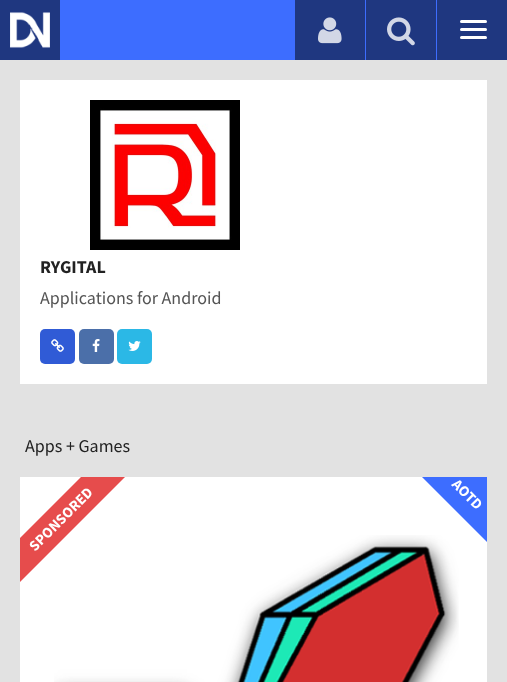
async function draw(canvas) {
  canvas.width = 507
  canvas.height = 682
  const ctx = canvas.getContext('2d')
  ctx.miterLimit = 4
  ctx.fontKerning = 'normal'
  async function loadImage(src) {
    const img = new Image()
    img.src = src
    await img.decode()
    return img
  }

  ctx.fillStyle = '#e2e2e2'
  ctx.fillRect(0, 0, 507, 682)
  ctx.fillStyle = '#3d6dff'
  ctx.fillRect(60, 0, 377, 60)
  ctx.fillStyle = '#1f3780'
  ctx.fillRect(0, 0, 60, 60)
  ctx.drawImage(await loadImage('image0.png'), 10, 12, 40, 36)
  ctx.fillRect(295, 0, 70, 60)
  ctx.drawImage(await loadImage('image1.png'), 318, 17, 24, 27)
  ctx.fillRect(366, 0, 70, 60)
  ctx.drawImage(await loadImage('image2.png'), 387, 17, 28, 29)
  ctx.fillRect(437, 0, 70, 60)
  ctx.fillStyle = '#fff'
  ctx.beginPath()
  ctx.roundRect(460, 20, 27, 3, 1.5)
  ctx.fill()
  ctx.beginPath()
  ctx.roundRect(460, 28, 27, 3, 1.5)
  ctx.fill()
  ctx.beginPath()
  ctx.roundRect(460, 36, 27, 3, 1.5)
  ctx.fill()
  ctx.fillRect(20, 80, 467, 304)
  ctx.drawImage(await loadImage('image3.png'), 90, 100, 150, 150)
  ctx.font = 'bold 18px Source Sans Pro'
  ctx.fillStyle = '#222'
  ctx.fillText('RYGITAL', 40, 273)
  ctx.font = '18px Source Sans Pro'
  ctx.fillStyle = '#555'
  ctx.fillText('Applications for Android', 40, 304)
  ctx.fillStyle = '#305bd6'
  ctx.beginPath()
  ctx.roundRect(40, 329, 35, 35, 5)
  ctx.fill()
  ctx.drawImage(await loadImage('image4.png'), 51, 339, 13, 13)
  ctx.fillStyle = '#4b6fa9'
  ctx.beginPath()
  ctx.roundRect(79, 329, 35, 35, 5)
  ctx.fill()
  ctx.drawImage(await loadImage('image5.png'), 92, 339, 8, 13)
  ctx.fillStyle = '#2bb8e6'
  ctx.beginPath()
  ctx.roundRect(117, 329, 35, 35, 5)
  ctx.fill()
  ctx.drawImage(await loadImage('image6.png'), 128, 341, 13, 10)
  ctx.fillStyle = '#222'
  ctx.fillText('Apps + Games', 25, 452)
  ctx.fillStyle = '#fff'
  ctx.fillRect(20, 477, 467, 205)
  ctx.drawImage(await loadImage('image7.png'), 54, 535, 405, 147)
  ctx.save()
  ctx.beginPath()
  ctx.rect(20, 477, 117, 107)
  ctx.clip()
  ctx.fillStyle = '#e64c4c'
  ctx.beginPath()
  ctx.moveTo(-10, 568)
  ctx.lineTo(110, 448)
  ctx.lineTo(132, 470)
  ctx.lineTo(12, 590)
  ctx.closePath()
  ctx.fill()
  ctx.restore()
  ctx.font = 'bold 15px Source Sans Pro'
  ctx.save()
  ctx.translate(35, 552)
  ctx.rotate(-45 * Math.PI / 180)
  ctx.fillText('SPONSORED', 0, 0)
  ctx.restore()
  ctx.save()
  ctx.beginPath()
  ctx.rect(20, 477, 467, 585)
  ctx.clip()
  ctx.fillStyle = '#3d6dff'
  ctx.beginPath()
  ctx.moveTo(455, 441)
  ctx.lineTo(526, 512)
  ctx.lineTo(491, 546)
  ctx.lineTo(420, 475)
  ctx.closePath()
  ctx.fill()
  ctx.restore()
  ctx.save()
  ctx.translate(451, 485)
  ctx.rotate(45 * Math.PI / 180)
  ctx.fillText('AOTD', 0, 0)
  ctx.restore()
}

draw(document.querySelector('canvas'))
